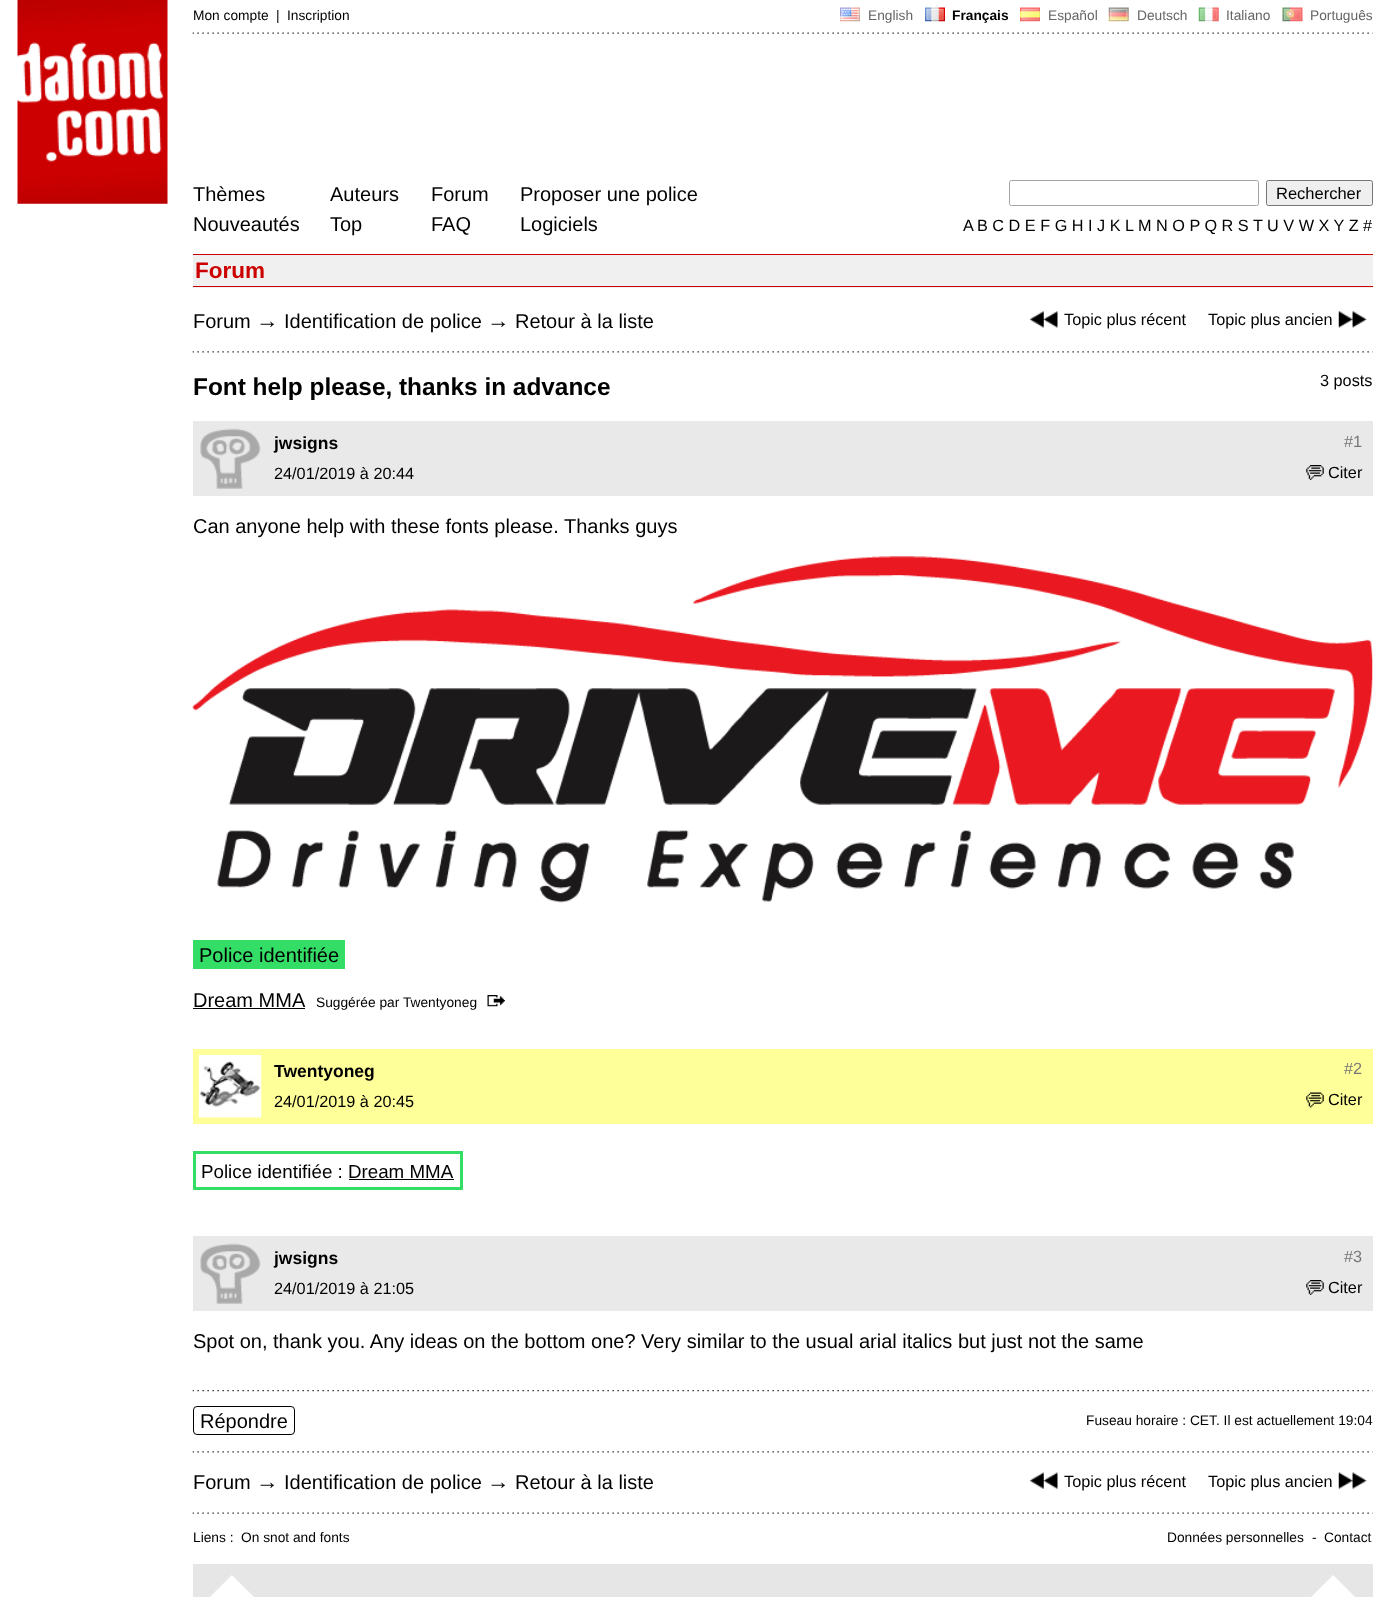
async function draw(canvas) {
  canvas.width = 1389
  canvas.height = 1597
  const ctx = canvas.getContext('2d')
  ctx.miterLimit = 4
  ctx.fontKerning = 'normal'
  async function loadImage(src) {
    const img = new Image()
    img.src = src
    await img.decode()
    return img
  }

  ctx.fillStyle = '#fff'
  ctx.fillRect(0, 0, 1389, 1597)
  ctx.drawImage(await loadImage('image0.png'), 17, 0, 151, 204)
  ctx.font = '13.75px Liberation Sans'
  ctx.fillStyle = '#000'
  ctx.fillText('Mon compte', 193, 20)
  ctx.fillText('|', 276, 20)
  ctx.fillText('Inscription', 287, 20)
  ctx.drawImage(await loadImage('image1.png'), 840, 7, 20, 15)
  ctx.fillStyle = '#666'
  ctx.fillText('English', 868, 20)
  ctx.drawImage(await loadImage('image2.png'), 925, 7, 20, 15)
  ctx.font = 'bold 13.75px Liberation Sans'
  ctx.fillStyle = '#000'
  ctx.fillText('Français', 952, 20)
  ctx.drawImage(await loadImage('image3.png'), 1020, 7, 20, 15)
  ctx.font = '13.75px Liberation Sans'
  ctx.fillStyle = '#666'
  ctx.fillText('Español', 1048, 20)
  ctx.drawImage(await loadImage('image4.png'), 1108, 7, 21, 15)
  ctx.fillText('Deutsch', 1137, 20)
  ctx.drawImage(await loadImage('image5.png'), 1198, 7, 21, 15)
  ctx.fillText('Italiano', 1226, 20)
  ctx.drawImage(await loadImage('image6.png'), 1282, 7, 21, 15)
  ctx.fillText('Português', 1310, 20)
  ctx.drawImage(await loadImage('image7.png'), 192, 32, 1181, 2)
  ctx.font = '20px Liberation Sans'
  ctx.fillStyle = '#000'
  ctx.fillText('Thèmes', 193, 201)
  ctx.fillText('Nouveautés', 193, 231)
  ctx.fillText('Auteurs', 330, 201)
  ctx.fillText('Top', 330, 231)
  ctx.fillText('Forum', 431, 201)
  ctx.fillText('FAQ', 431, 231)
  ctx.fillText('Proposer une police', 520, 201)
  ctx.fillText('Logiciels', 520, 231)
  ctx.beginPath()
  ctx.roundRect(1009.5, 180.5, 249, 25, 2)
  ctx.strokeStyle = '#a4a4a4'
  ctx.stroke()
  ctx.fillStyle = '#efefef'
  ctx.beginPath()
  ctx.roundRect(1266.5, 180.5, 106, 25, 2)
  ctx.fill()
  ctx.strokeStyle = '#767676'
  ctx.stroke()
  ctx.font = '16.5px Liberation Sans'
  ctx.fillStyle = '#000'
  ctx.fillText('Rechercher', 1276, 199)
  ctx.font = '16.25px Liberation Sans'
  ctx.fillText('A', 963, 231)
  ctx.fillText('B C D E F G H I J K', 977, 231)
  ctx.fillText('L M N O P Q R S T U V W X Y Z #', 1125, 231)
  ctx.fillStyle = '#f0f0f0'
  ctx.fillRect(193, 255, 1180, 33)
  ctx.fillStyle = '#c00'
  ctx.fillRect(193, 254, 1180, 1)
  ctx.fillRect(193, 286, 1180, 1)
  ctx.font = 'bold 22.5px Liberation Sans'
  ctx.fillText('Forum', 195, 278)
  ctx.font = '20px Liberation Sans'
  ctx.fillStyle = '#000'
  ctx.fillText('Forum', 193, 328)
  ctx.font = '22.5px Liberation Sans'
  ctx.fillText('→', 256, 328)
  ctx.font = '20px Liberation Sans'
  ctx.fillText('Identification de police', 284, 328)
  ctx.font = '22.5px Liberation Sans'
  ctx.fillText('→', 487, 328)
  ctx.font = '20px Liberation Sans'
  ctx.fillText('Retour à la liste', 515, 328)
  ctx.drawImage(await loadImage('image8.png'), 1029, 311, 29, 17)
  ctx.font = '16.25px Liberation Sans'
  ctx.fillText('Topic plus récent', 1064, 325)
  ctx.fillText('Topic plus ancien', 1208, 325)
  ctx.drawImage(await loadImage('image9.png'), 1338, 311, 29, 17)
  ctx.drawImage(await loadImage('image10.png'), 192, 351, 1181, 2)
  ctx.font = 'bold 24.4px Liberation Sans'
  ctx.fillText('Font help please, thanks in advance', 193, 395)
  ctx.font = '16.25px Liberation Sans'
  ctx.fillText('3 posts', 1320, 386)
  ctx.fillStyle = '#e9e9e9'
  ctx.fillRect(193, 421, 1180, 75)
  ctx.drawImage(await loadImage('image11.png'), 200, 428, 61, 61)
  ctx.font = 'bold 17.5px Liberation Sans'
  ctx.fillStyle = '#000'
  ctx.fillText('jwsigns', 274, 449)
  ctx.font = '16.25px Liberation Sans'
  ctx.fillStyle = '#777'
  ctx.fillText('#1', 1344, 447)
  ctx.fillStyle = '#000'
  ctx.fillText('24/01/2019 à 20:44', 274, 479)
  ctx.drawImage(await loadImage('image12.png'), 1306, 465, 18, 15)
  ctx.fillText('Citer', 1328, 478)
  ctx.font = '20px Liberation Sans'
  ctx.fillText('Can anyone help with these fonts please. Thanks guys', 193, 533)
  ctx.drawImage(await loadImage('image13.png'), 192, 556, 1181, 347)
  ctx.fillStyle = '#3d6'
  ctx.fillRect(193, 940, 152, 29)
  ctx.fillStyle = '#000'
  ctx.fillText('Police identifiée', 199, 962)
  ctx.fillText('Dream MMA', 193, 1007)
  ctx.fillRect(193, 1008, 112, 1)
  ctx.font = '13.75px Liberation Sans'
  ctx.fillText('Suggérée par Twentyoneg', 316, 1007)
  ctx.drawImage(await loadImage('image14.png'), 487, 995, 18, 12)
  ctx.fillStyle = '#ff9'
  ctx.fillRect(193, 1049, 1180, 75)
  ctx.drawImage(await loadImage('image15.png'), 198, 1055, 64, 63)
  ctx.font = 'bold 17.5px Liberation Sans'
  ctx.fillStyle = '#000'
  ctx.fillText('Twentyoneg', 274, 1077)
  ctx.font = '16.25px Liberation Sans'
  ctx.fillStyle = '#777'
  ctx.fillText('#2', 1344, 1074)
  ctx.fillStyle = '#000'
  ctx.fillText('24/01/2019 à 20:45', 274, 1107)
  ctx.drawImage(await loadImage('image16.png'), 1306, 1092, 18, 16)
  ctx.fillText('Citer', 1328, 1105)
  ctx.strokeStyle = '#3d6'
  ctx.lineWidth = 3
  ctx.strokeRect(194.5, 1152.5, 267, 36)
  ctx.font = '18.75px Liberation Sans'
  ctx.fillText('Police identifiée : Dream MMA', 201, 1178)
  ctx.fillRect(349, 1179, 105, 1)
  ctx.fillStyle = '#e9e9e9'
  ctx.fillRect(193, 1236, 1180, 75)
  ctx.drawImage(await loadImage('image11.png'), 200, 1243, 61, 61)
  ctx.font = 'bold 17.5px Liberation Sans'
  ctx.fillStyle = '#000'
  ctx.fillText('jwsigns', 274, 1264)
  ctx.font = '16.25px Liberation Sans'
  ctx.fillStyle = '#777'
  ctx.fillText('#3', 1344, 1262)
  ctx.fillStyle = '#000'
  ctx.fillText('24/01/2019 à 21:05', 274, 1294)
  ctx.drawImage(await loadImage('image12.png'), 1306, 1280, 18, 15)
  ctx.fillText('Citer', 1328, 1293)
  ctx.font = '20px Liberation Sans'
  ctx.fillText('Spot on, thank you. Any ideas on the bottom one? Very similar to the usual arial italics but just not the same', 193, 1348)
  ctx.drawImage(await loadImage('image17.png'), 192, 1390, 1181, 2)
  ctx.beginPath()
  ctx.roundRect(193.5, 1406.5, 101, 28, 3.5)
  ctx.strokeStyle = '#000'
  ctx.lineWidth = 1
  ctx.stroke()
  ctx.fillText('Répondre', 200, 1428)
  ctx.font = '13.75px Liberation Sans'
  ctx.fillText('Fuseau horaire : CET. Il est actuellement 19:04', 1086, 1425)
  ctx.drawImage(await loadImage('image10.png'), 192, 1451, 1181, 2)
  ctx.font = '20px Liberation Sans'
  ctx.fillText('Forum', 193, 1489)
  ctx.font = '22.5px Liberation Sans'
  ctx.fillText('→', 256, 1489)
  ctx.font = '20px Liberation Sans'
  ctx.fillText('Identification de police', 284, 1489)
  ctx.font = '22.5px Liberation Sans'
  ctx.fillText('→', 487, 1489)
  ctx.font = '20px Liberation Sans'
  ctx.fillText('Retour à la liste', 515, 1489)
  ctx.drawImage(await loadImage('image18.png'), 1029, 1472, 29, 17)
  ctx.font = '16.25px Liberation Sans'
  ctx.fillText('Topic plus récent', 1064, 1487)
  ctx.fillText('Topic plus ancien', 1208, 1487)
  ctx.drawImage(await loadImage('image19.png'), 1338, 1472, 29, 17)
  ctx.drawImage(await loadImage('image7.png'), 192, 1512, 1181, 2)
  ctx.font = '13.75px Liberation Sans'
  ctx.fillText('Liens :', 193, 1542)
  ctx.fillText('On snot and fonts', 241, 1542)
  ctx.fillText('Données personnelles', 1167, 1542)
  ctx.fillText('-', 1312, 1542)
  ctx.fillText('Contact', 1324, 1542)
  ctx.fillStyle = '#e6e6e6'
  ctx.fillRect(193, 1564, 1180, 33)
  ctx.drawImage(await loadImage('image20.png'), 210, 1575, 44, 22)
  ctx.drawImage(await loadImage('image21.png'), 1311, 1575, 44, 22)
}

draw(document.querySelector('canvas'))
